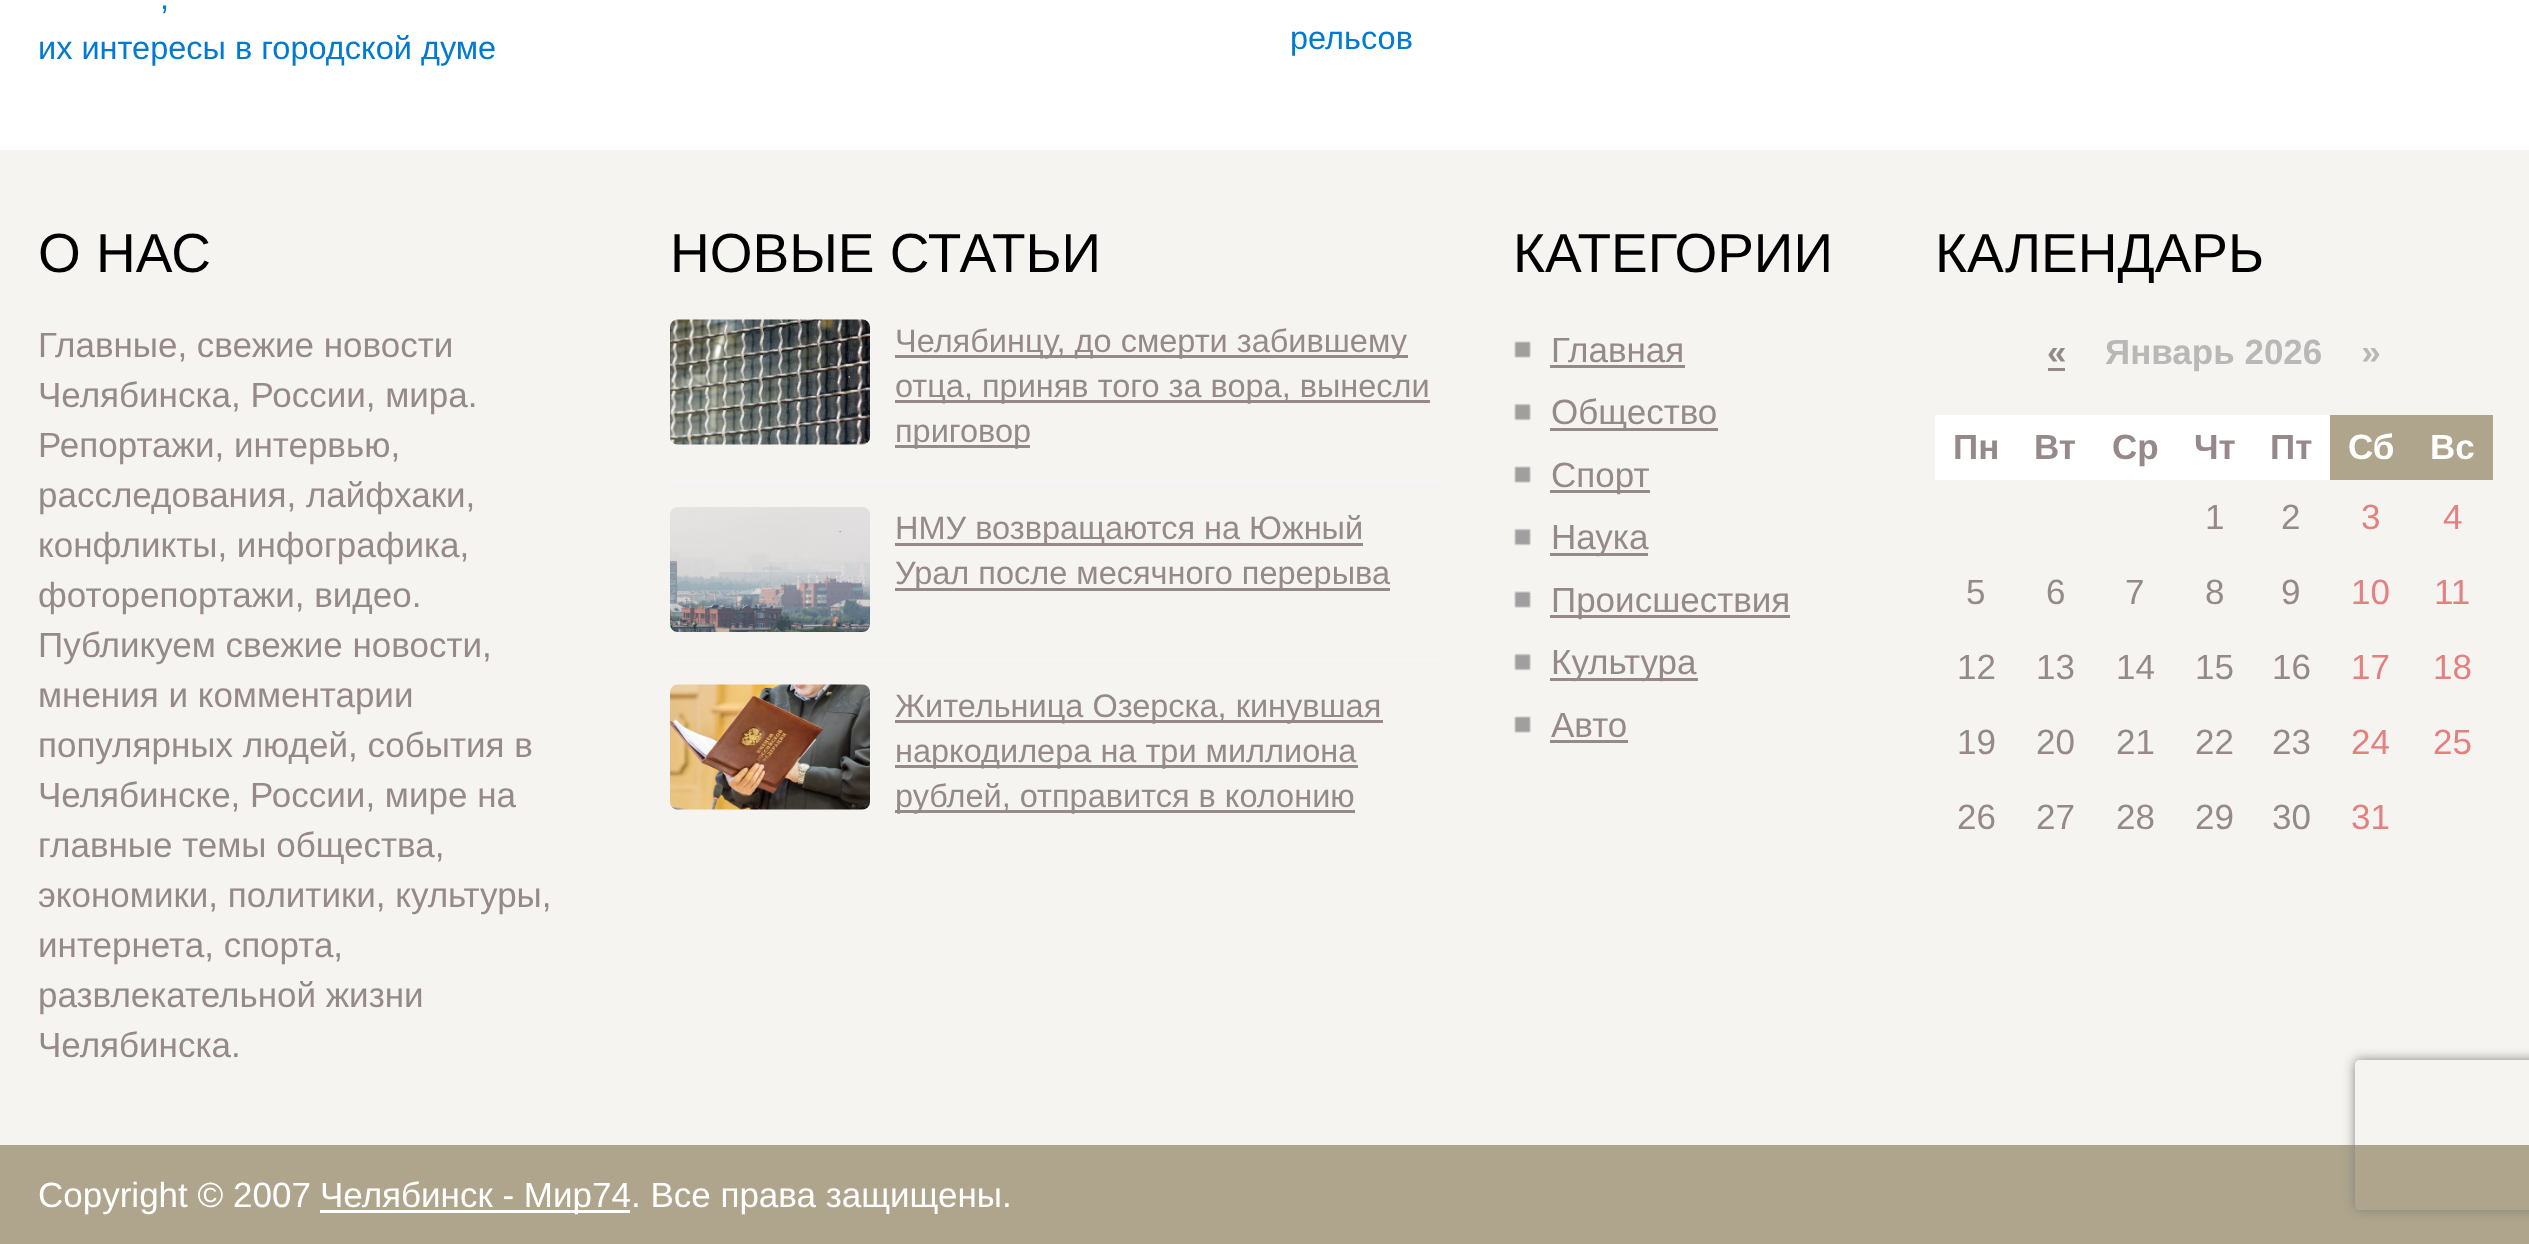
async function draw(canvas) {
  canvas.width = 2529
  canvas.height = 1244
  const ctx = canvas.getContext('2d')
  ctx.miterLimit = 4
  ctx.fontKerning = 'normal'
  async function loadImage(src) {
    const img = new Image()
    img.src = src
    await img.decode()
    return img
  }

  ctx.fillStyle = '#fff'
  ctx.fillRect(0, 0, 2529, 1244)
  ctx.font = '32.5px Liberation Sans'
  ctx.fillStyle = '#007ad2'
  ctx.fillText(',', 160, 9)
  ctx.fillText('их интересы в городской думе', 38, 59)
  ctx.fillText('рельсов', 1290, 49)
  ctx.fillStyle = '#f5f4f0'
  ctx.fillRect(0, 150, 2529, 995)
  ctx.font = '55px Liberation Sans'
  ctx.fillStyle = '#000'
  ctx.fillText('О НАС', 38, 272)
  ctx.font = '35px Liberation Sans'
  ctx.fillStyle = '#968989'
  ctx.fillText('Главные, свежие новости', 38, 357)
  ctx.fillText('Челябинска, России, мира.', 38, 407)
  ctx.fillText('Репортажи, интервью,', 38, 457)
  ctx.fillText('расследования, лайфхаки,', 38, 507)
  ctx.fillText('конфликты, инфографика,', 38, 557)
  ctx.fillText('фоторепортажи, видео.', 38, 607)
  ctx.fillText('Публикуем свежие новости,', 38, 657)
  ctx.fillText('мнения и комментарии', 38, 707)
  ctx.fillText('популярных людей, события в', 38, 757)
  ctx.fillText('Челябинске, России, мире на', 38, 807)
  ctx.fillText('главные темы общества,', 38, 857)
  ctx.fillText('экономики, политики, культуры,', 38, 907)
  ctx.fillText('интернета, спорта,', 38, 957)
  ctx.fillText('развлекательной жизни', 38, 1007)
  ctx.fillText('Челябинска.', 38, 1057)
  ctx.font = '55px Liberation Sans'
  ctx.fillStyle = '#000'
  ctx.fillText('НОВЫЕ СТАТЬИ', 670, 272)
  ctx.fillStyle = '#f6f6f6'
  ctx.fillRect(670, 480, 768, 3)
  ctx.drawImage(await loadImage('image0.png'), 670, 319, 200, 126)
  ctx.fillStyle = '#968989'
  ctx.fillRect(895, 355, 513, 3)
  ctx.font = '32.5px Liberation Sans'
  ctx.fillText('Челябинцу, до смерти забившему', 895, 352)
  ctx.fillRect(895, 400, 535, 3)
  ctx.fillText('отца, приняв того за вора, вынесли', 895, 397)
  ctx.fillRect(895, 445, 135, 3)
  ctx.fillText('приговор', 895, 442)
  ctx.fillStyle = '#f6f6f6'
  ctx.fillRect(670, 658, 768, 3)
  ctx.drawImage(await loadImage('image1.png'), 670, 507, 200, 125)
  ctx.fillStyle = '#968989'
  ctx.fillRect(895, 543, 468, 3)
  ctx.fillText('НМУ возвращаются на Южный', 895, 539)
  ctx.fillRect(895, 588, 495, 3)
  ctx.fillText('Урал после месячного перерыва', 895, 584)
  ctx.drawImage(await loadImage('image2.png'), 670, 684, 200, 126)
  ctx.fillRect(895, 720, 488, 3)
  ctx.fillText('Жительница Озерска, кинувшая', 895, 717)
  ctx.fillRect(895, 765, 463, 3)
  ctx.fillText('наркодилера на три миллиона', 895, 762)
  ctx.fillRect(895, 810, 460, 3)
  ctx.fillText('рублей, отправится в колонию', 895, 807)
  ctx.font = '55px Liberation Sans'
  ctx.fillStyle = '#000'
  ctx.fillText('КАТЕГОРИИ', 1513, 272)
  ctx.drawImage(await loadImage('image3.png'), 1514, 341, 17, 17)
  ctx.font = '35px Liberation Sans'
  ctx.fillStyle = '#968989'
  ctx.fillText('Главная', 1551, 362)
  ctx.fillRect(1550, 365, 135, 3)
  ctx.drawImage(await loadImage('image4.png'), 1514, 403, 17, 18)
  ctx.fillRect(1550, 428, 168, 3)
  ctx.fillText('Общество', 1551, 424)
  ctx.drawImage(await loadImage('image3.png'), 1514, 466, 17, 17)
  ctx.fillRect(1550, 490, 100, 3)
  ctx.fillText('Спорт', 1551, 487)
  ctx.drawImage(await loadImage('image4.png'), 1514, 528, 17, 18)
  ctx.fillRect(1550, 553, 98, 3)
  ctx.fillText('Наука', 1551, 549)
  ctx.drawImage(await loadImage('image3.png'), 1514, 591, 17, 17)
  ctx.fillRect(1550, 615, 240, 3)
  ctx.fillText('Происшествия', 1551, 612)
  ctx.drawImage(await loadImage('image4.png'), 1514, 653, 17, 18)
  ctx.fillRect(1550, 678, 148, 3)
  ctx.fillText('Культура', 1551, 674)
  ctx.drawImage(await loadImage('image3.png'), 1514, 716, 17, 17)
  ctx.fillText('Авто', 1551, 737)
  ctx.fillRect(1550, 740, 78, 3)
  ctx.font = '55px Liberation Sans'
  ctx.fillStyle = '#000'
  ctx.fillText('КАЛЕНДАРЬ', 1935, 272)
  ctx.font = 'bold 35px Liberation Sans'
  ctx.fillStyle = '#968989'
  ctx.fillText('«', 2047, 364)
  ctx.fillRect(2048, 368, 17, 3)
  ctx.fillStyle = '#b8b8b8'
  ctx.fillText('Январь 2026    »', 2105, 364)
  ctx.fillStyle = '#fff'
  ctx.fillRect(1935, 415, 395, 65)
  ctx.fillStyle = '#968989'
  ctx.fillText('Пн', 1953, 459)
  ctx.fillText('Вт', 2034, 459)
  ctx.fillText('Ср', 2112, 459)
  ctx.fillText('Чт', 2194, 459)
  ctx.fillText('Пт', 2270, 459)
  ctx.fillStyle = '#aea58c'
  ctx.fillRect(2330, 415, 163, 65)
  ctx.fillStyle = '#fff'
  ctx.fillText('Сб', 2348, 459)
  ctx.fillText('Вс', 2430, 459)
  ctx.font = '35px Liberation Sans'
  ctx.fillStyle = '#968989'
  ctx.fillText('1', 2205, 529)
  ctx.fillText('2', 2281, 529)
  ctx.fillStyle = '#e38181'
  ctx.fillText('3', 2361, 529)
  ctx.fillText('4', 2443, 529)
  ctx.fillStyle = '#968989'
  ctx.fillText('5', 1966, 604)
  ctx.fillText('6', 2046, 604)
  ctx.fillText('7', 2125, 604)
  ctx.fillText('8', 2205, 604)
  ctx.fillText('9', 2281, 604)
  ctx.fillStyle = '#e38181'
  ctx.fillText('10', 2351, 604)
  ctx.fillText('11', 2434, 604)
  ctx.fillStyle = '#968989'
  ctx.fillText('12', 1957, 679)
  ctx.fillText('13', 2036, 679)
  ctx.fillText('14', 2116, 679)
  ctx.fillText('15', 2195, 679)
  ctx.fillText('16', 2272, 679)
  ctx.fillStyle = '#e38181'
  ctx.fillText('17', 2351, 679)
  ctx.fillText('18', 2433, 679)
  ctx.fillStyle = '#968989'
  ctx.fillText('19', 1957, 754)
  ctx.fillText('20', 2036, 754)
  ctx.fillText('21', 2116, 754)
  ctx.fillText('22', 2195, 754)
  ctx.fillText('23', 2272, 754)
  ctx.fillStyle = '#e38181'
  ctx.fillText('24', 2351, 754)
  ctx.fillText('25', 2433, 754)
  ctx.fillStyle = '#968989'
  ctx.fillText('26', 1957, 829)
  ctx.fillText('27', 2036, 829)
  ctx.fillText('28', 2116, 829)
  ctx.fillText('29', 2195, 829)
  ctx.fillText('30', 2272, 829)
  ctx.fillStyle = '#e38181'
  ctx.fillText('31', 2351, 829)
  ctx.fillStyle = '#aea58c'
  ctx.fillRect(0, 1145, 2529, 99)
  ctx.fillStyle = '#fff'
  ctx.fillText('Copyright © 2007', 38, 1207)
  ctx.fillRect(320, 1210, 310, 3)
  ctx.fillText('Челябинск - Мир74. Все права защищены.', 320, 1207)
  ctx.save()
  ctx.beginPath()
  ctx.moveTo(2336, 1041)
  ctx.lineTo(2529, 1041)
  ctx.lineTo(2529, 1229)
  ctx.lineTo(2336, 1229)
  ctx.closePath()
  ctx.moveTo(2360, 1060)
  ctx.lineTo(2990, 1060)
  ctx.bezierCurveTo(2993, 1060, 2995, 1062, 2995, 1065)
  ctx.lineTo(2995, 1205)
  ctx.bezierCurveTo(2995, 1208, 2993, 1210, 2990, 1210)
  ctx.lineTo(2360, 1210)
  ctx.bezierCurveTo(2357, 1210, 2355, 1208, 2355, 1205)
  ctx.lineTo(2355, 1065)
  ctx.bezierCurveTo(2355, 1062, 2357, 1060, 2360, 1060)
  ctx.closePath()
  ctx.clip('evenodd')
  ctx.fillStyle = '#808080'
  ctx.filter = 'blur(6px)'
  ctx.beginPath()
  ctx.roundRect(2355, 1060, 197, 150, 5)
  ctx.fill()
  ctx.filter = 'none'
  ctx.restore()
}

draw(document.querySelector('canvas'))
